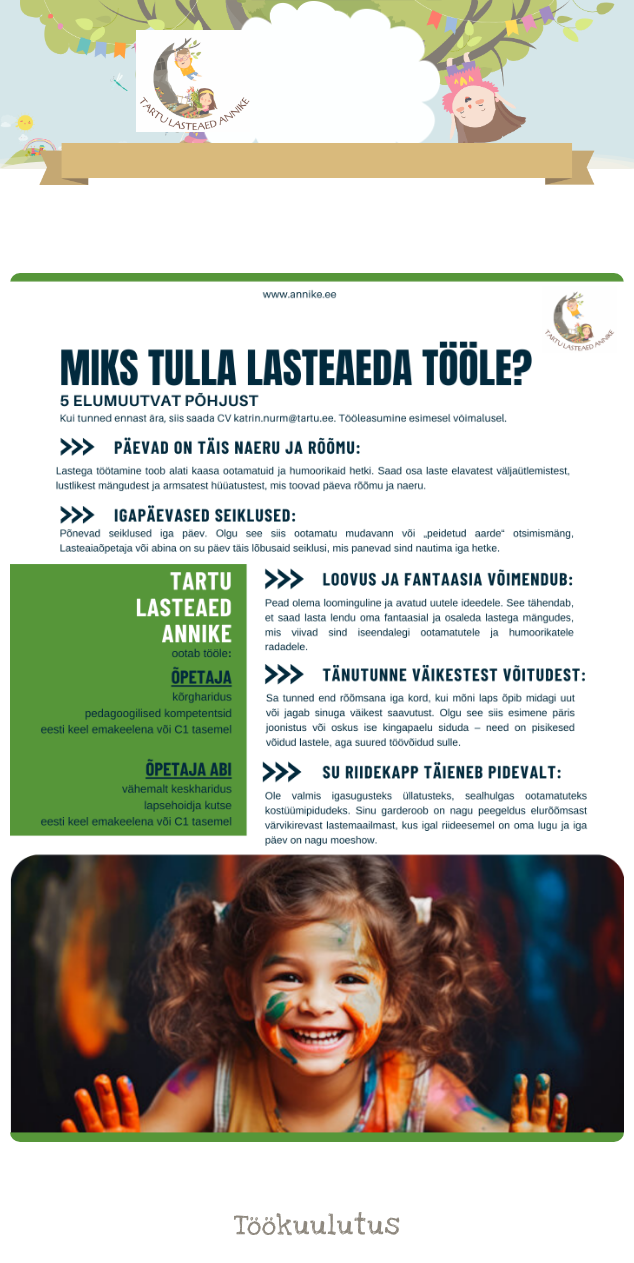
async function draw(canvas) {
  canvas.width = 634
  canvas.height = 1263
  const ctx = canvas.getContext('2d')
  ctx.miterLimit = 4
  ctx.fontKerning = 'normal'
  async function loadImage(src) {
    const img = new Image()
    img.src = src
    await img.decode()
    return img
  }

  ctx.fillStyle = '#fff'
  ctx.fillRect(0, 0, 634, 1263)
  ctx.fillStyle = '#d5e6e9'
  ctx.fillRect(0, 0, 634, 168)
  ctx.drawImage(await loadImage('image0.png'), 0, 112, 130, 56)
  ctx.drawImage(await loadImage('image1.png'), 20, 0, 595, 143)
  ctx.drawImage(await loadImage('image2.png'), 203, 1, 238, 142)
  ctx.drawImage(await loadImage('image3.png'), 136, 30, 114, 102)
  ctx.drawImage(await loadImage('image4.png'), 0, 154, 634, 15)
  ctx.drawImage(await loadImage('image5.png'), 39, 143, 50, 42)
  ctx.fillStyle = '#d9ba7c'
  ctx.fillRect(89, 143, 456, 35)
  ctx.drawImage(await loadImage('image6.png'), 545, 143, 50, 42)
  ctx.drawImage(await loadImage('image7.png'), 10, 273, 614, 869)
  ctx.letterSpacing = '1px'
  ctx.font = '28px Love Ya Like A Sister'
  ctx.fillStyle = '#8d877d'
  ctx.fillText('Töökuulutus', 234, 1234)
}

draw(document.querySelector('canvas'))
